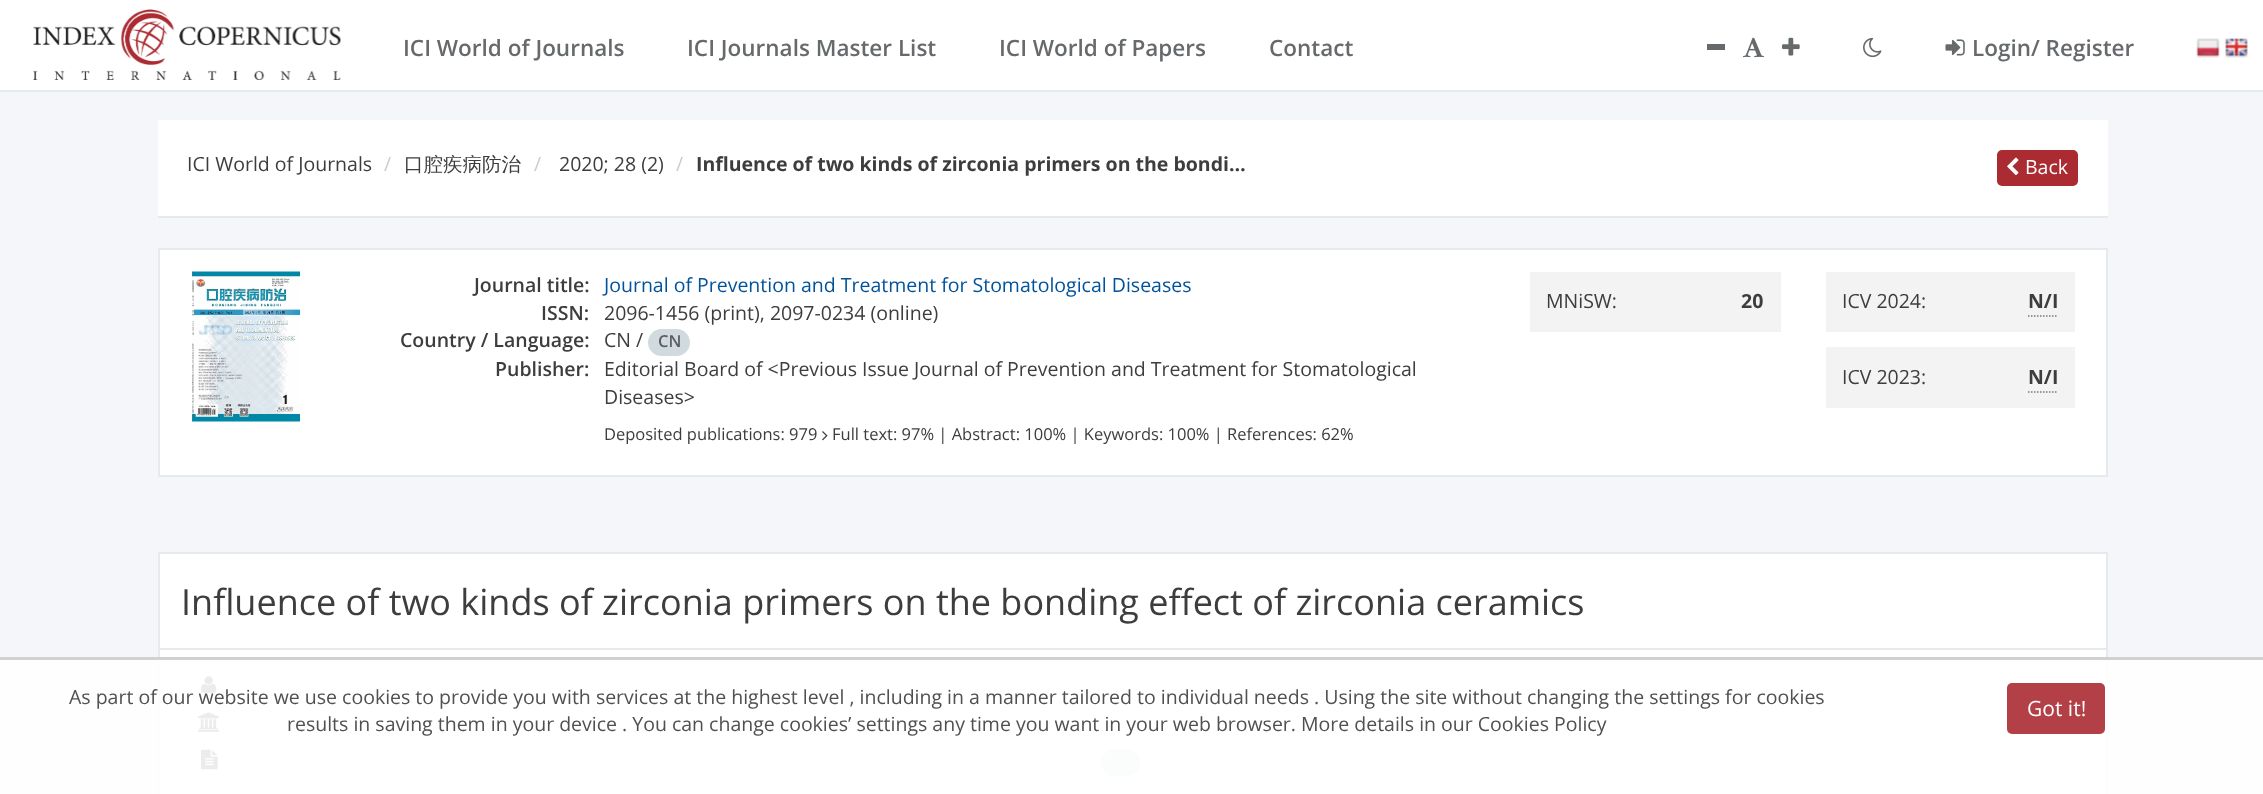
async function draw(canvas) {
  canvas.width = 2263
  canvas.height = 794
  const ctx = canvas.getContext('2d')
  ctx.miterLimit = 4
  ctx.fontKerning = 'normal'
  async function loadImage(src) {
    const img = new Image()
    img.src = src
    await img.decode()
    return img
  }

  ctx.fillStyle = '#f4f6fa'
  ctx.fillRect(0, 0, 2263, 794)
  ctx.fillStyle = '#fff'
  ctx.fillRect(0, 0, 2263, 90)
  ctx.fillStyle = '#e7eaec'
  ctx.fillRect(0, 90, 2263, 2)
  ctx.drawImage(await loadImage('image0.png'), 33, 9, 308, 72)
  ctx.font = '600 22.5px Open Sans'
  ctx.fillStyle = '#676a6c'
  ctx.fillText('ICI World of Journals', 403, 56)
  ctx.fillText('ICI Journals Master List', 687, 56)
  ctx.fillText('ICI World of Papers', 999, 56)
  ctx.fillText('Contact', 1269, 56)
  ctx.fillRect(1707, 44, 18, 6)
  ctx.drawImage(await loadImage('image1.png'), 1743, 37, 21, 21)
  ctx.drawImage(await loadImage('image2.png'), 1782, 37, 18, 19)
  ctx.drawImage(await loadImage('image3.png'), 1863, 37, 19, 21)
  ctx.drawImage(await loadImage('image4.png'), 1945, 39, 20, 17)
  ctx.fillText('Login/ Register', 1972, 56)
  ctx.drawImage(await loadImage('image5.png'), 2196, 38, 24, 20)
  ctx.drawImage(await loadImage('image6.png'), 2225, 38, 23, 20)
  ctx.fillStyle = '#fff'
  ctx.fillRect(158, 120, 1950, 96)
  ctx.fillStyle = '#e7eaec'
  ctx.fillRect(158, 216, 1950, 2)
  ctx.font = '19.5px Open Sans'
  ctx.fillStyle = '#3d3d3d'
  ctx.fillText('ICI World of Journals', 187, 171)
  ctx.fillStyle = '#ccc'
  ctx.fillText('/', 384, 171)
  ctx.font = '500 19.5px WenQuanYi Zen Hei'
  ctx.fillStyle = '#3d3d3d'
  ctx.fillText('口腔疾病防治', 404, 171)
  ctx.font = '19.5px Open Sans'
  ctx.fillStyle = '#ccc'
  ctx.fillText('/', 534, 171)
  ctx.fillStyle = '#3d3d3d'
  ctx.fillText('2020; 28 (2)', 559, 171)
  ctx.fillStyle = '#ccc'
  ctx.fillText('/', 676, 171)
  ctx.font = 'bold 19.5px Open Sans'
  ctx.fillStyle = '#3d3d3d'
  ctx.fillText('Influence of two kinds of zirconia primers on the bondi…', 696, 171)
  ctx.fillStyle = '#aa2b31'
  ctx.beginPath()
  ctx.roundRect(1998, 151, 79, 34, 4)
  ctx.fill()
  ctx.strokeStyle = '#aa2b31'
  ctx.lineWidth = 2
  ctx.stroke()
  ctx.drawImage(await loadImage('image7.png'), 2007, 157, 12, 18)
  ctx.font = '19.5px Open Sans'
  ctx.fillStyle = '#fff'
  ctx.fillText('Back', 2025, 174)
  ctx.beginPath()
  ctx.rect(159, 249, 1948, 227)
  ctx.fill()
  ctx.strokeStyle = '#e7eaec'
  ctx.stroke()
  ctx.drawImage(await loadImage('image8.png'), 192, 271, 108, 151)
  ctx.font = '600 19.5px Open Sans'
  ctx.fillStyle = '#3d3d3d'
  ctx.fillText('Journal title:', 474, 292)
  ctx.font = '19.5px Open Sans'
  ctx.fillStyle = '#00539b'
  ctx.fillText('Journal of Prevention and Treatment for Stomatological Diseases', 604, 292)
  ctx.font = '600 19.5px Open Sans'
  ctx.fillStyle = '#3d3d3d'
  ctx.fillText('ISSN:', 541, 320)
  ctx.font = '19.5px Open Sans'
  ctx.fillText('2096-1456 (print), 2097-0234 (online)', 604, 320)
  ctx.font = '600 19.5px Open Sans'
  ctx.fillText('Country / Language:', 400, 347)
  ctx.font = '19.5px Open Sans'
  ctx.fillText('CN /', 604, 347)
  ctx.fillStyle = '#d1dade'
  ctx.beginPath()
  ctx.roundRect(648, 329, 42, 27, 13.5)
  ctx.fill()
  ctx.font = '600 16.5px Open Sans'
  ctx.fillStyle = '#5e5e5e'
  ctx.fillText('CN', 658, 347)
  ctx.font = '600 19.5px Open Sans'
  ctx.fillStyle = '#3d3d3d'
  ctx.fillText('Publisher:', 495, 376)
  ctx.font = '19.5px Open Sans'
  ctx.fillText('Editorial Board of <Previous Issue Journal of Prevention and Treatment for Stomatological', 604, 376)
  ctx.fillText('Diseases>', 604, 404)
  ctx.fillStyle = '#f3f3f4'
  ctx.fillRect(1530, 272, 251, 60)
  ctx.fillStyle = '#3d3d3d'
  ctx.fillText('MNiSW:', 1546, 308)
  ctx.font = 'bold 19.5px Open Sans'
  ctx.fillText('20', 1741, 308)
  ctx.fillStyle = '#f3f3f4'
  ctx.fillRect(1826, 272, 249, 60)
  ctx.font = '19.5px Open Sans'
  ctx.fillStyle = '#3d3d3d'
  ctx.fillText('ICV 2024:', 1842, 308)
  ctx.beginPath()
  ctx.moveTo(2028, 316)
  ctx.lineTo(2058, 316)
  ctx.strokeStyle = '#777'
  ctx.lineWidth = 1.5
  ctx.setLineDash([1.5, 1.5])
  ctx.stroke()
  ctx.font = 'bold 19.5px Open Sans'
  ctx.fillText('N/I', 2028, 308)
  ctx.fillStyle = '#f3f3f4'
  ctx.fillRect(1826, 347, 249, 61)
  ctx.font = '19.5px Open Sans'
  ctx.fillStyle = '#3d3d3d'
  ctx.fillText('ICV 2023:', 1842, 384)
  ctx.beginPath()
  ctx.moveTo(2028, 392)
  ctx.lineTo(2058, 392)
  ctx.stroke()
  ctx.font = 'bold 19.5px Open Sans'
  ctx.fillText('N/I', 2028, 384)
  ctx.font = '16.5px Open Sans'
  ctx.fillText('Deposited publications: 979', 604, 440)
  ctx.drawImage(await loadImage('image9.png'), 822, 431, 6, 10)
  ctx.fillText('Full text: 97% | Abstract: 100% | Keywords: 100% | References: 62%', 832, 440)
  ctx.fillStyle = '#fff'
  ctx.fillRect(160, 554, 1946, 94)
  ctx.fillStyle = '#e7eaec'
  ctx.fillRect(158, 552, 1950, 2)
  ctx.fillRect(2106, 552, 2, 96)
  ctx.fillRect(158, 552, 2, 96)
  ctx.font = '36px Open Sans'
  ctx.fillStyle = '#3d3d3d'
  ctx.fillText('Influence of two kinds of zirconia primers on the bonding effect of zirconia ceramics', 181, 615)
  ctx.fillStyle = '#fff'
  ctx.beginPath()
  ctx.rect(159, 649, 1948, 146)
  ctx.fill()
  ctx.strokeStyle = '#e7eaec'
  ctx.lineWidth = 2
  ctx.setLineDash([])
  ctx.stroke()
  ctx.drawImage(await loadImage('image10.png'), 201, 676, 16, 17)
  ctx.drawImage(await loadImage('image11.png'), 198, 712, 21, 20)
  ctx.drawImage(await loadImage('image12.png'), 201, 749, 17, 21)
  ctx.fillStyle = '#d1dade'
  ctx.beginPath()
  ctx.roundRect(1101, 749, 39, 27, 13.5)
  ctx.fill()
  ctx.fillStyle = '#ffffffe6'
  ctx.fillRect(0, 660, 2263, 134)
  ctx.fillStyle = '#d1d1d1'
  ctx.fillRect(0, 657, 2263, 3)
  ctx.font = '19.5px Open Sans'
  ctx.fillStyle = '#505050'
  ctx.fillText('As part of our website we use cookies to provide you with services at the highest level , including in a manner tailored to individual needs . Using the site without changing the settings for cookies', 69, 704)
  ctx.fillText('results in saving them in your device . You can change cookies’ settings any time you want in your web browser. More details in our Cookies Policy', 287, 731)
  ctx.fillStyle = '#b34046'
  ctx.beginPath()
  ctx.roundRect(2007, 683, 98, 51, 5)
  ctx.fill()
  ctx.font = '21px Open Sans'
  ctx.fillStyle = '#fff'
  ctx.fillText('Got it!', 2027, 716)
}

draw(document.querySelector('canvas'))
